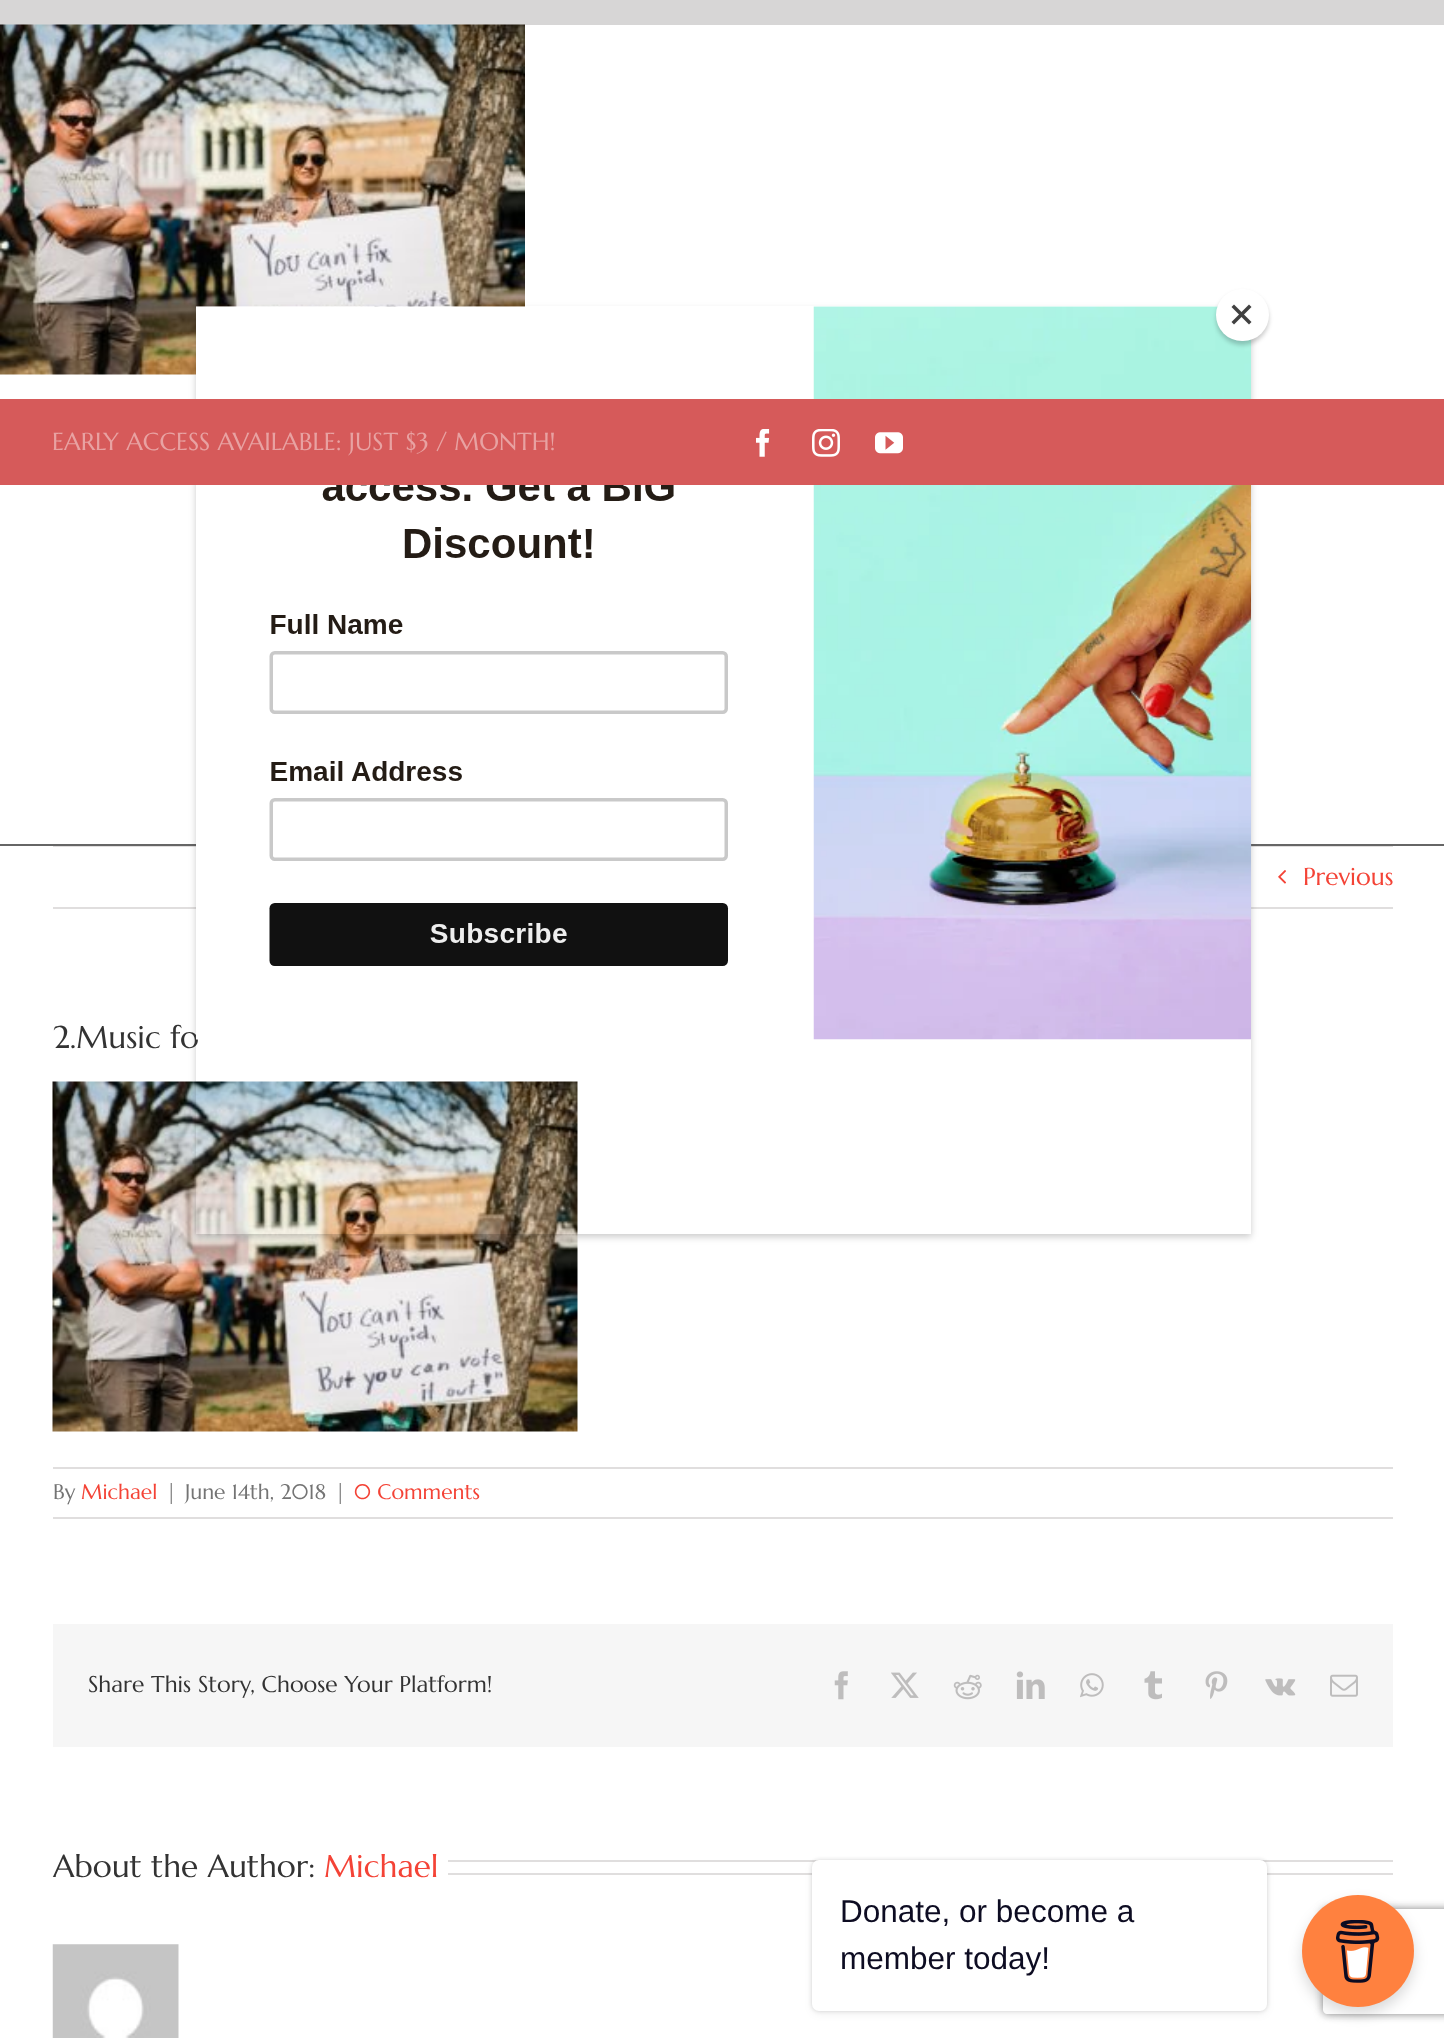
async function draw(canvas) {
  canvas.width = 1444
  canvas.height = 2038
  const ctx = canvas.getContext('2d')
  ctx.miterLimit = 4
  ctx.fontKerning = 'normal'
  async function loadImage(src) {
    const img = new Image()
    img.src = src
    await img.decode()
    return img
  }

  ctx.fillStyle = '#d7d6d6'
  ctx.fillRect(0, 0, 1444, 2038)
  ctx.fillStyle = '#fff'
  ctx.fillRect(0, 25, 1444, 2013)
  ctx.drawImage(await loadImage('image1.png'), 0, 24, 525, 351)
  ctx.fillStyle = '#666'
  ctx.fillRect(0, 844, 1444, 2)
  ctx.fillStyle = '#e0dede'
  ctx.fillRect(53, 846, 1340, 1)
  ctx.fillRect(53, 907, 1340, 2)
  ctx.drawImage(await loadImage('image6.png'), 52, 1081, 526, 351)
  ctx.save()
  ctx.beginPath()
  ctx.moveTo(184, 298)
  ctx.lineTo(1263, 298)
  ctx.lineTo(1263, 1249)
  ctx.lineTo(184, 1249)
  ctx.closePath()
  ctx.moveTo(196, 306)
  ctx.lineTo(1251, 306)
  ctx.lineTo(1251, 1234)
  ctx.lineTo(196, 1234)
  ctx.closePath()
  ctx.clip('evenodd')
  ctx.fillStyle = '#00000033'
  ctx.filter = 'blur(3.5px)'
  ctx.beginPath()
  ctx.rect(196, 310, 1055, 927)
  ctx.fill()
  ctx.filter = 'none'
  ctx.restore()
  ctx.font = '31.5px Marcellus'
  ctx.fillStyle = '#333'
  ctx.fillText('2.Music fo', 53, 1048)
  ctx.drawImage(await loadImage('image0.png'), 196, 306, 1056, 734)
  ctx.fillStyle = '#00000033'
  ctx.filter = 'blur(2px)'
  ctx.beginPath()
  ctx.roundRect(1216, 292, 53, 53, 26.5)
  ctx.fill()
  ctx.filter = 'none'
  ctx.fillStyle = '#fff'
  ctx.beginPath()
  ctx.roundRect(1216, 289, 53, 52, 26)
  ctx.fill()
  ctx.fillStyle = '#414141'
  ctx.beginPath()
  ctx.moveTo(1249, 304.5)
  ctx.lineTo(1251.5, 307)
  ctx.lineTo(1234, 324.5)
  ctx.lineTo(1231.5, 322)
  ctx.closePath()
  ctx.fill()
  ctx.beginPath()
  ctx.moveTo(1231.5, 307)
  ctx.lineTo(1234, 304.5)
  ctx.lineTo(1251.5, 322)
  ctx.lineTo(1249, 324.5)
  ctx.closePath()
  ctx.fill()
  ctx.fillStyle = '#d65a5a'
  ctx.fillRect(0, 399, 1444, 86)
  ctx.font = '24.5px Marcellus'
  ctx.fillStyle = '#e8a2a2'
  ctx.fillText('EARLY ACCESS AVAILABLE: JUST $3 / MONTH!', 52, 450)
  ctx.drawImage(await loadImage('image2.png'), 756, 429, 14, 28)
  ctx.drawImage(await loadImage('image3.png'), 812, 429, 28, 28)
  ctx.drawImage(await loadImage('image4.png'), 875, 432, 28, 22)
  ctx.drawImage(await loadImage('image5.png'), 1278, 870, 8, 14)
  ctx.fillStyle = '#f44336'
  ctx.fillText('Previous', 1303, 885)
  ctx.fillStyle = '#e0dede'
  ctx.fillRect(53, 1467, 1340, 2)
  ctx.fillRect(53, 1517, 1340, 2)
  ctx.font = '21px Marcellus'
  ctx.fillStyle = '#747474'
  ctx.fillText('By', 53, 1499)
  ctx.fillStyle = '#f44336'
  ctx.fillText('Michael', 81, 1499)
  ctx.fillStyle = '#747474'
  ctx.fillText('|', 166, 1499)
  ctx.fillText('June 14th, 2018', 185, 1499)
  ctx.fillText('|', 335, 1499)
  ctx.fillStyle = '#f44336'
  ctx.fillText('0 Comments', 354, 1499)
  ctx.fillStyle = '#f6f6f6'
  ctx.fillRect(53, 1624, 1340, 123)
  ctx.font = '22.75px Marcellus'
  ctx.fillStyle = '#333'
  ctx.fillText('Share This Story, Choose Your Platform!', 88, 1692)
  ctx.drawImage(await loadImage('image7.png'), 834, 1671, 14, 29)
  ctx.drawImage(await loadImage('image8.png'), 891, 1672, 28, 26)
  ctx.drawImage(await loadImage('image9.png'), 953, 1674, 29, 26)
  ctx.drawImage(await loadImage('image10.png'), 1016, 1671, 29, 28)
  ctx.drawImage(await loadImage('image11.png'), 1080, 1673, 24, 25)
  ctx.drawImage(await loadImage('image12.png'), 1144, 1671, 18, 29)
  ctx.drawImage(await loadImage('image13.png'), 1205, 1671, 23, 28)
  ctx.drawImage(await loadImage('image14.png'), 1265, 1678, 31, 18)
  ctx.drawImage(await loadImage('image15.png'), 1330, 1674, 28, 23)
  ctx.font = '31.5px Marcellus'
  ctx.fillText('About the Author:', 53, 1877)
  ctx.fillStyle = '#f44336'
  ctx.fillText('Michael', 324, 1877)
  ctx.fillStyle = '#e0dede'
  ctx.fillRect(448, 1860, 945, 2)
  ctx.fillRect(448, 1873, 945, 2)
  ctx.drawImage(await loadImage('image16.png'), 52, 1944, 127, 94)
  ctx.fillStyle = '#00000026'
  ctx.filter = 'blur(7px)'
  ctx.beginPath()
  ctx.roundRect(1302, 1902, 112, 112, 56)
  ctx.fill()
  ctx.filter = 'none'
  ctx.save()
  ctx.beginPath()
  ctx.moveTo(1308, 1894)
  ctx.lineTo(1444, 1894)
  ctx.lineTo(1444, 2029)
  ctx.lineTo(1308, 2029)
  ctx.closePath()
  ctx.moveTo(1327, 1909)
  ctx.lineTo(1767, 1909)
  ctx.bezierCurveTo(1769, 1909, 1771, 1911, 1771, 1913)
  ctx.lineTo(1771, 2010)
  ctx.bezierCurveTo(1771, 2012, 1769, 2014, 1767, 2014)
  ctx.lineTo(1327, 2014)
  ctx.bezierCurveTo(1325, 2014, 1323, 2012, 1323, 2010)
  ctx.lineTo(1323, 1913)
  ctx.bezierCurveTo(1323, 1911, 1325, 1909, 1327, 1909)
  ctx.closePath()
  ctx.clip('evenodd')
  ctx.fillStyle = '#808080'
  ctx.filter = 'blur(4.5px)'
  ctx.beginPath()
  ctx.roundRect(1323, 1909, 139, 105, 4)
  ctx.fill()
  ctx.filter = 'none'
  ctx.restore()
  ctx.fillStyle = '#ff813f'
  ctx.beginPath()
  ctx.arc(1358, 1951, 56, 0, 2 * Math.PI)
  ctx.fill()
  ctx.drawImage(await loadImage('image17.png'), 1336, 1920, 44, 63)
  ctx.fillStyle = '#00000026'
  ctx.filter = 'blur(2px)'
  ctx.beginPath()
  ctx.roundRect(812, 1860, 455, 151, 7)
  ctx.fill()
  ctx.filter = 'none'
  ctx.fillStyle = '#0000000d'
  ctx.filter = 'blur(4.5px)'
  ctx.beginPath()
  ctx.roundRect(812, 1864, 455, 150, 7)
  ctx.fill()
  ctx.filter = 'none'
  ctx.fillStyle = '#fff'
  ctx.beginPath()
  ctx.roundRect(812, 1860, 455, 151, 7)
  ctx.fill()
  ctx.font = '31.5px Liberation Sans'
  ctx.fillStyle = '#0d0c22'
  ctx.fillText('Donate, or become a', 840, 1922)
  ctx.fillText('member today!', 840, 1969)
}

draw(document.querySelector('canvas'))
